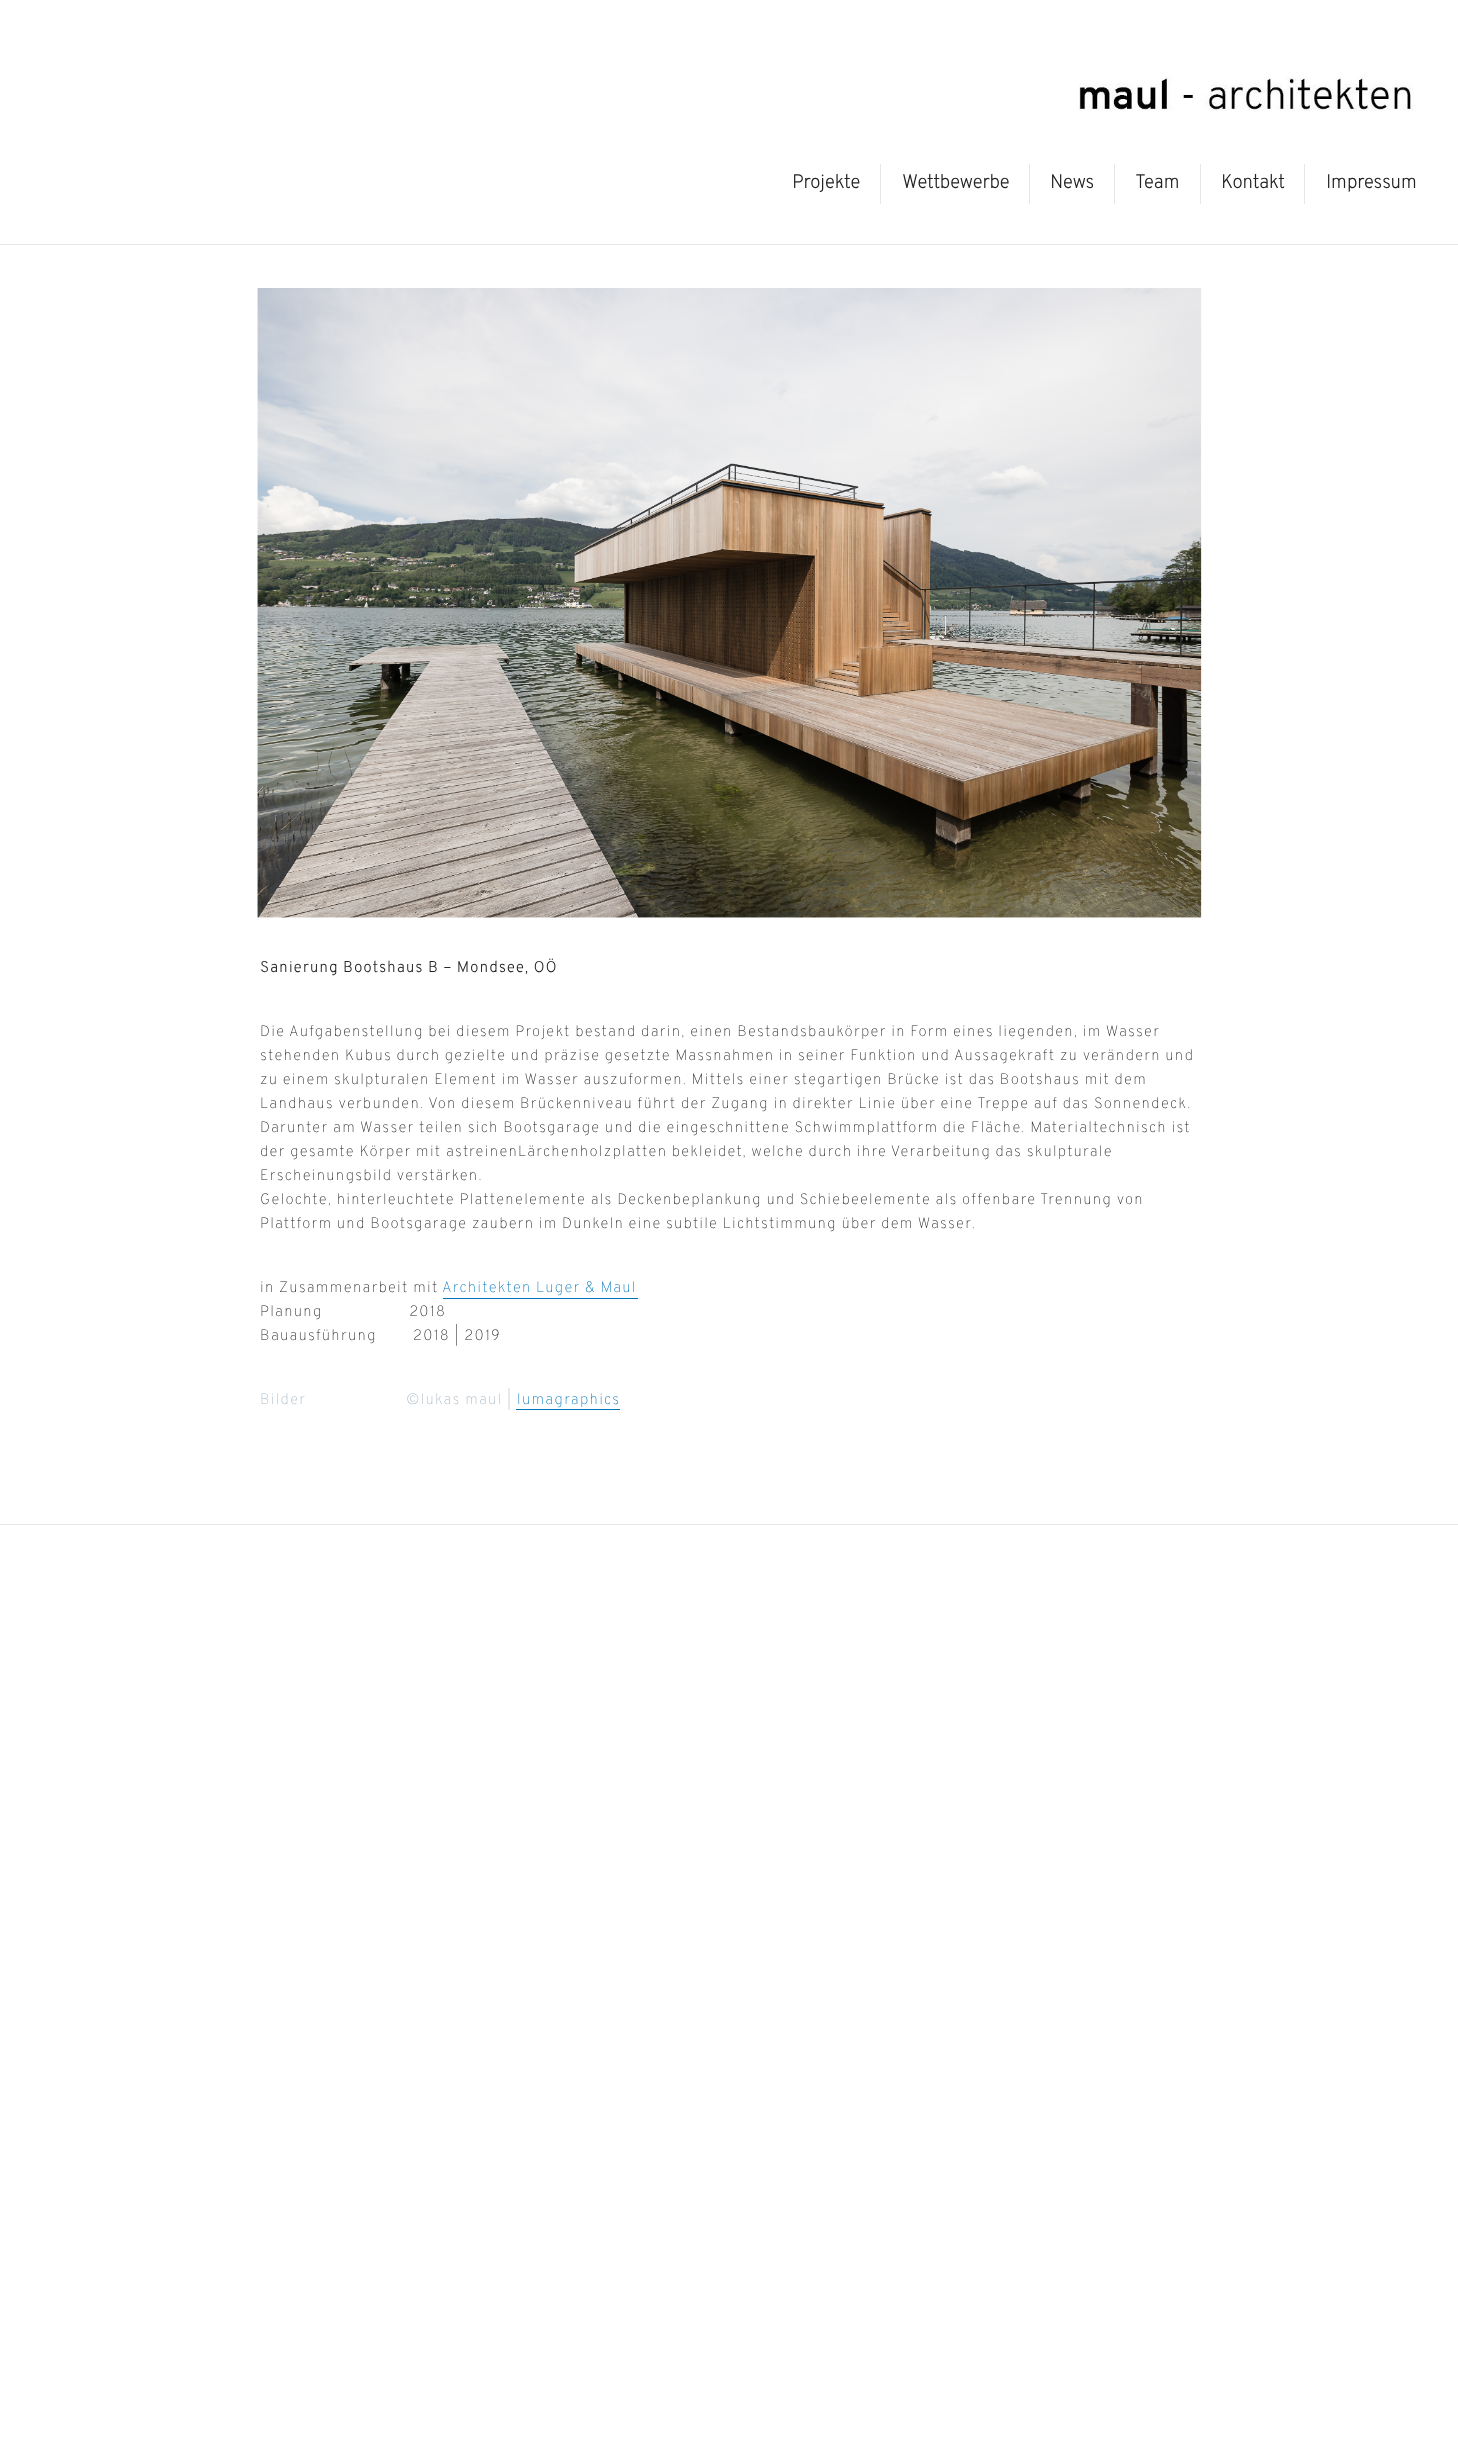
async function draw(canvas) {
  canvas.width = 1458
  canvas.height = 2460
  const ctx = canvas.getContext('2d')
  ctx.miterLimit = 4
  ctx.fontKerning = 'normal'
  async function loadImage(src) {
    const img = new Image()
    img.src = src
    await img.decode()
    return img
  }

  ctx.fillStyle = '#fff'
  ctx.fillRect(0, 0, 1458, 2460)
  ctx.drawImage(await loadImage('image0.png'), 1079, 76, 335, 35)
  ctx.fillStyle = '#e6e6e6'
  ctx.fillRect(0, 244, 1458, 1)
  ctx.font = 'bold 18.75px Overpass'
  ctx.fillStyle = '#232323'
  ctx.fillText('Projekte', 792, 188)
  ctx.fillStyle = '#e6e6e6'
  ctx.fillRect(880, 164, 1, 40)
  ctx.fillStyle = '#232323'
  ctx.fillText('Wettbewerbe', 902, 188)
  ctx.fillStyle = '#e6e6e6'
  ctx.fillRect(1029, 164, 1, 40)
  ctx.fillStyle = '#232323'
  ctx.fillText('News', 1050, 188)
  ctx.fillStyle = '#e6e6e6'
  ctx.fillRect(1114, 164, 1, 40)
  ctx.fillStyle = '#232323'
  ctx.fillText('Team', 1135, 188)
  ctx.fillStyle = '#e6e6e6'
  ctx.fillRect(1200, 164, 1, 40)
  ctx.fillStyle = '#232323'
  ctx.fillText('Kontakt', 1221, 188)
  ctx.fillStyle = '#e6e6e6'
  ctx.fillRect(1304, 164, 1, 40)
  ctx.fillStyle = '#232323'
  ctx.fillText('Impressum', 1326, 188)
  ctx.drawImage(await loadImage('image1.png'), 257, 288, 945, 630)
  ctx.drawImage(await loadImage('image2.png'), 272, 578, 34, 1)
  ctx.drawImage(await loadImage('image3.png'), 1153, 578, 33, 1)
  ctx.letterSpacing = '1.25px'
  ctx.font = 'bold 15px Overpass'
  ctx.fillText('Sanierung Bootshaus B – Mondsee, OÖ', 260, 972)
  ctx.font = '100 15px Overpass'
  ctx.fillText('Die Aufgabenstellung bei diesem Projekt bestand darin, einen Bestandsbaukörper in Form eines liegenden, im Wasser', 260, 1036)
  ctx.fillText('stehenden Kubus durch gezielte und präzise gesetzte Massnahmen in seiner Funktion und Aussagekraft zu verändern und', 260, 1060)
  ctx.fillText('zu einem skulpturalen Element im Wasser auszuformen. Mittels einer stegartigen Brücke ist das Bootshaus mit dem', 260, 1084)
  ctx.fillText('Landhaus verbunden. Von diesem Brückenniveau führt der Zugang in direkter Linie über eine Treppe auf das Sonnendeck.', 260, 1108)
  ctx.fillText('Darunter am Wasser teilen sich Bootsgarage und die eingeschnittene Schwimmplattform die Fläche. Materialtechnisch ist', 260, 1132)
  ctx.fillText('der gesamte Körper mit astreinenLärchenholzplatten bekleidet, welche durch ihre Verarbeitung das skulpturale', 260, 1156)
  ctx.fillText('Erscheinungsbild verstärken.', 260, 1180)
  ctx.fillText('Gelochte, hinterleuchtete Plattenelemente als Deckenbeplankung und Schiebeelemente als offenbare Trennung von', 260, 1204)
  ctx.fillText('Plattform und Bootsgarage zaubern im Dunkeln eine subtile Lichtstimmung über dem Wasser.', 260, 1228)
  ctx.fillText('in Zusammenarbeit mit', 260, 1292)
  ctx.fillStyle = '#0074b8'
  ctx.fillText('Architekten Luger & Maul', 442, 1292)
  ctx.fillRect(443, 1298, 195, 1)
  ctx.fillStyle = '#232323'
  ctx.fillText('Planung                   2018', 260, 1316)
  ctx.fillText('Bauausführung', 260, 1340)
  ctx.fillText('2018 | 2019', 413, 1340)
  ctx.fillStyle = '#abb8c3'
  ctx.fillText('Bilder                      ©lukas maul |', 260, 1404)
  ctx.fillStyle = '#0074b8'
  ctx.fillText('lumagraphics', 517, 1404)
  ctx.fillRect(516, 1409, 104, 1)
  ctx.fillStyle = '#e6e6e6'
  ctx.fillRect(0, 1524, 1458, 1)
}

draw(document.querySelector('canvas'))
